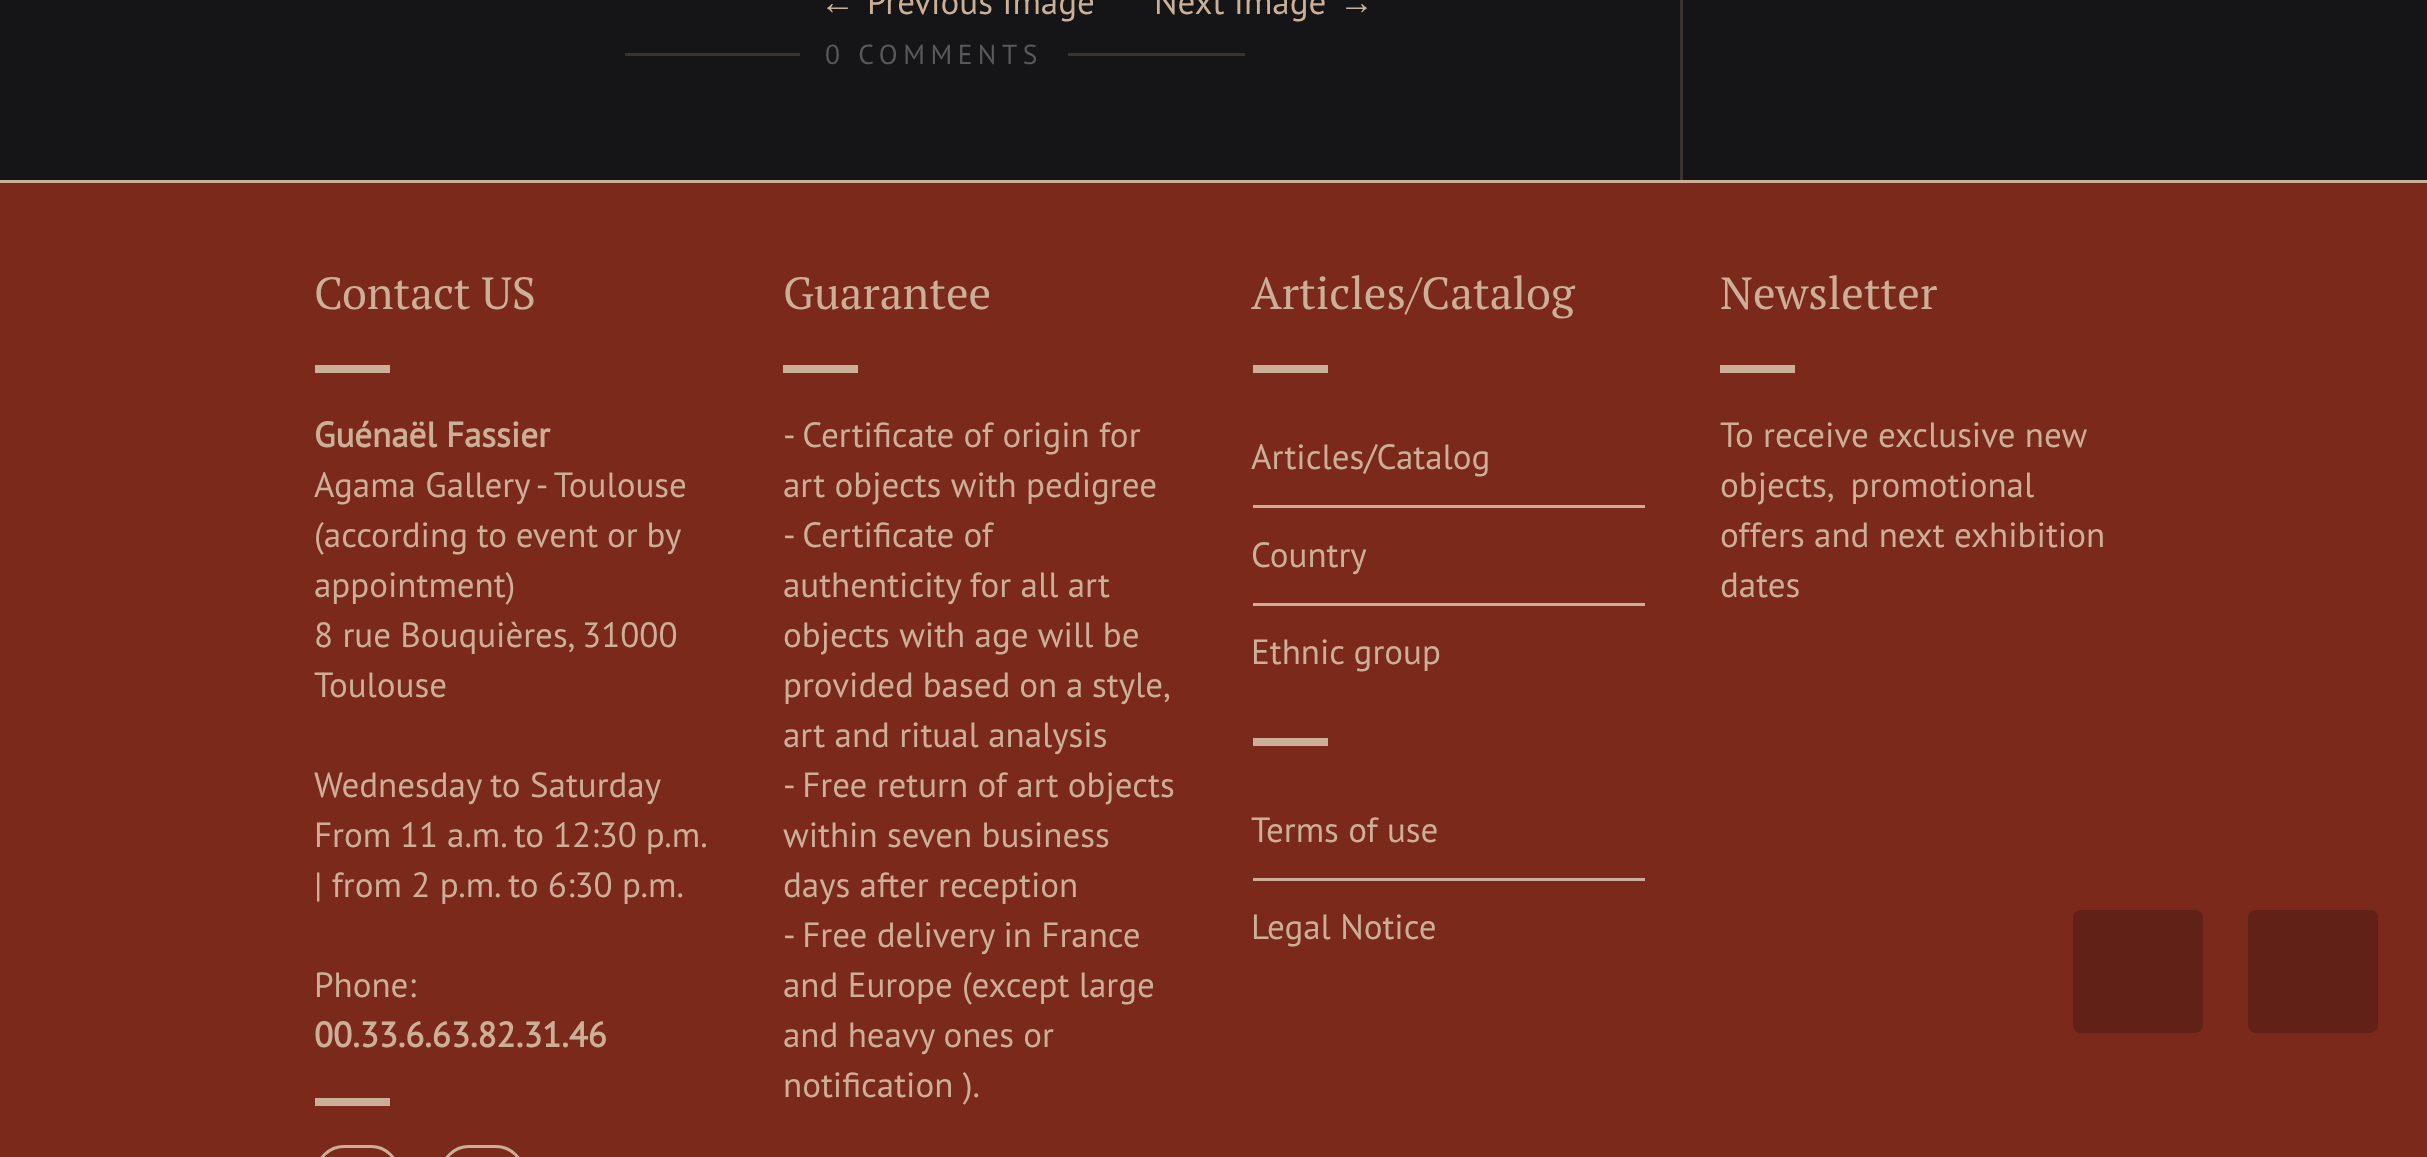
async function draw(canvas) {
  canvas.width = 2427
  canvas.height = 1157
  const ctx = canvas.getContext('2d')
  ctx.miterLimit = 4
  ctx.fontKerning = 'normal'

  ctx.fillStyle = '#151416'
  ctx.fillRect(0, 0, 2427, 1157)
  ctx.fillStyle = '#3a3330'
  ctx.fillRect(1680, 0, 3, 180)
  ctx.font = '35px Liberation Serif'
  ctx.fillStyle = '#ccaf97'
  ctx.fillText('←', 820, 14)
  ctx.font = '35px PT Sans'
  ctx.fillText('Previous Image', 867, 14)
  ctx.fillText('Next Image', 1154, 14)
  ctx.font = '35px Liberation Serif'
  ctx.fillText('→', 1339, 14)
  ctx.fillStyle = '#3a3330'
  ctx.fillRect(625, 53, 620, 3)
  ctx.fillStyle = '#151416'
  ctx.beginPath()
  ctx.roundRect(800, 33, 268, 45, 5)
  ctx.fill()
  ctx.letterSpacing = '5.5px'
  ctx.font = '27.5px PT Sans'
  ctx.fillStyle = '#59585a'
  ctx.fillText('0 COMMENTS', 825, 64)
  ctx.fillStyle = '#7b291b'
  ctx.fillRect(0, 183, 2427, 974)
  ctx.fillStyle = '#ccaf97'
  ctx.fillRect(0, 180, 2427, 3)
  ctx.letterSpacing = '0px'
  ctx.font = '45px PT Serif'
  ctx.fillText('Contact US', 314, 309)
  ctx.fillRect(315, 365, 75, 8)
  ctx.font = 'bold 35px PT Sans'
  ctx.fillText('Guénaël Fassier', 314, 447)
  ctx.font = '35px PT Sans'
  ctx.fillText('Agama Gallery - Toulouse', 314, 497)
  ctx.wordSpacing = '-0.5px'
  ctx.fillText('(according to event or by', 314, 547)
  ctx.wordSpacing = '0px'
  ctx.fillText('appointment)', 314, 597)
  ctx.fillText('8 rue Bouquières, 31000', 314, 647)
  ctx.fillText('Toulouse', 314, 697)
  ctx.fillText('Wednesday to Saturday', 314, 797)
  ctx.wordSpacing = '-0.5px'
  ctx.fillText('From 11 a.m. to 12:30 p.m.', 314, 847)
  ctx.wordSpacing = '0px'
  ctx.fillText('| from 2 p.m. to 6:30 p.m.', 314, 897)
  ctx.fillText('Phone:', 314, 997)
  ctx.font = 'bold 35px PT Sans'
  ctx.fillText('00.33.6.63.82.31.46', 314, 1047)
  ctx.fillRect(315, 1098, 75, 8)
  ctx.beginPath()
  ctx.roundRect(316.5, 1146.5, 82, 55, 41)
  ctx.strokeStyle = '#ccaf97'
  ctx.lineWidth = 3
  ctx.stroke()
  ctx.beginPath()
  ctx.roundRect(441.5, 1146.5, 82, 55, 41)
  ctx.stroke()
  ctx.font = '45px PT Serif'
  ctx.fillText('Guarantee', 783, 309)
  ctx.fillRect(783, 365, 75, 8)
  ctx.font = '35px PT Sans'
  ctx.fillText('- Certificate of origin for', 783, 447)
  ctx.fillText('art objects with pedigree', 783, 497)
  ctx.fillText('- Certificate of', 783, 547)
  ctx.fillText('authenticity for all art', 783, 597)
  ctx.fillText('objects with age will be', 783, 647)
  ctx.wordSpacing = '-0.5px'
  ctx.fillText('provided based on a style,', 783, 697)
  ctx.wordSpacing = '0px'
  ctx.fillText('art and ritual analysis', 783, 747)
  ctx.fillText('- Free return of art objects', 783, 797)
  ctx.fillText('within seven business', 783, 847)
  ctx.fillText('days after reception', 783, 897)
  ctx.fillText('- Free delivery in France', 783, 947)
  ctx.fillText('and Europe (except large', 783, 997)
  ctx.fillText('and heavy ones or', 783, 1047)
  ctx.fillText('notification ).', 783, 1097)
  ctx.font = '45px PT Serif'
  ctx.fillText('Articles/Catalog', 1251, 309)
  ctx.fillRect(1253, 365, 75, 8)
  ctx.fillRect(1253, 505, 392, 3)
  ctx.font = '35px PT Sans'
  ctx.fillText('Articles/Catalog', 1251, 469)
  ctx.fillRect(1253, 603, 392, 3)
  ctx.fillText('Country', 1251, 567)
  ctx.fillText('Ethnic group', 1251, 664)
  ctx.fillRect(1253, 738, 75, 8)
  ctx.fillRect(1253, 878, 392, 3)
  ctx.fillText('Terms of use', 1251, 842)
  ctx.fillText('Legal Notice', 1251, 939)
  ctx.font = '45px PT Serif'
  ctx.fillText('Newsletter', 1720, 309)
  ctx.fillRect(1720, 365, 75, 8)
  ctx.font = '35px PT Sans'
  ctx.fillText('To receive exclusive new', 1720, 447)
  ctx.fillText('objects,  promotional', 1720, 497)
  ctx.fillText('offers and next exhibition', 1720, 547)
  ctx.fillText('dates', 1720, 597)
  ctx.fillStyle = '#622116'
  ctx.beginPath()
  ctx.roundRect(2073, 910, 130, 123, 8)
  ctx.fill()
  ctx.beginPath()
  ctx.roundRect(2248, 910, 130, 123, 8)
  ctx.fill()
}

draw(document.querySelector('canvas'))
